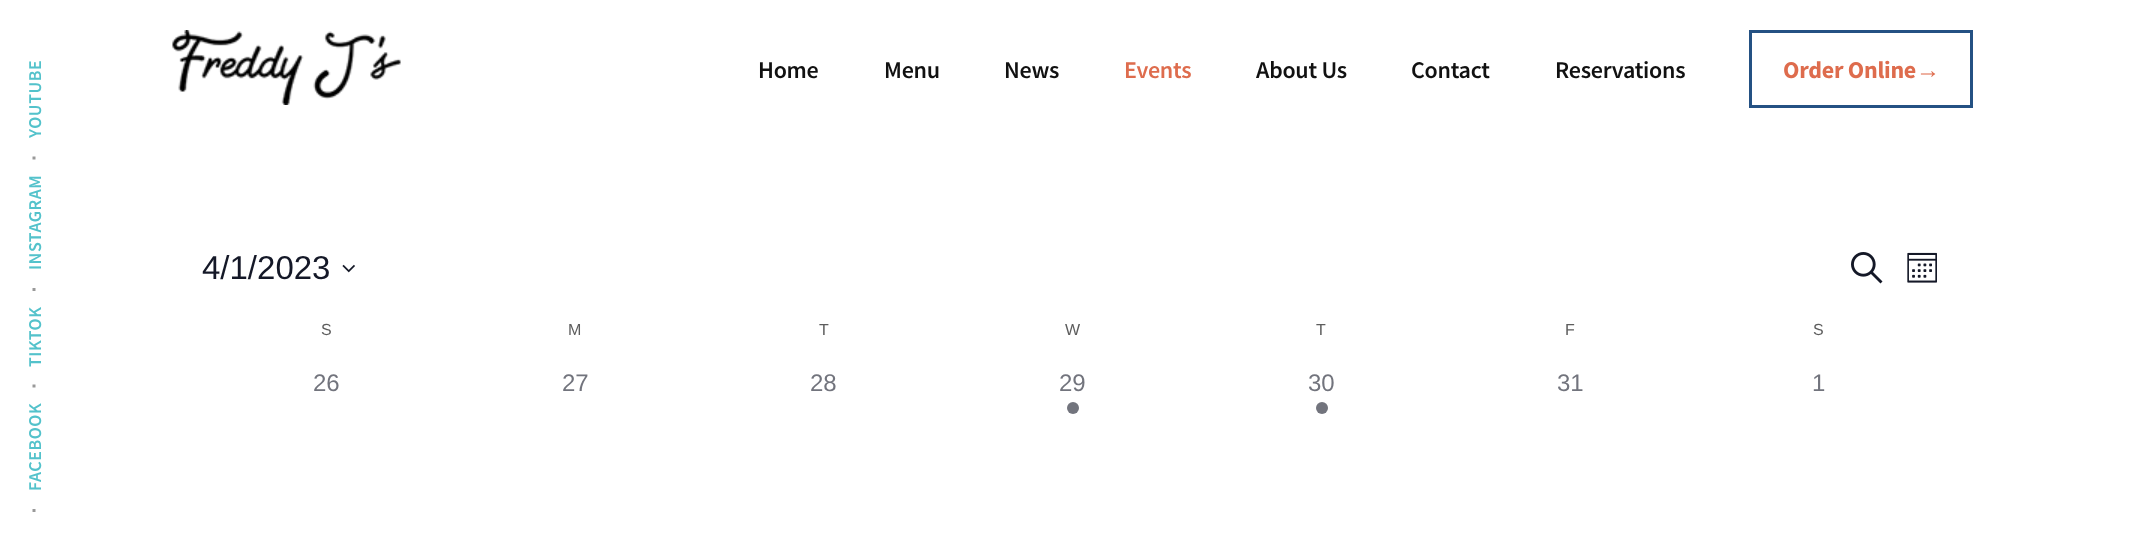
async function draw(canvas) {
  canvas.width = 2145
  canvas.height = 544
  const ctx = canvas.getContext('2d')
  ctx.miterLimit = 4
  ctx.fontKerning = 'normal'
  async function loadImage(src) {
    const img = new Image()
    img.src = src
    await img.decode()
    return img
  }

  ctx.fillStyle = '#fff'
  ctx.fillRect(0, 0, 2145, 544)
  ctx.letterSpacing = '0.5px'
  ctx.font = '600 18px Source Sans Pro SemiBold'
  ctx.fillStyle = '#53c2cb'
  ctx.save()
  ctx.translate(41, 138)
  ctx.rotate(-90 * Math.PI / 180)
  ctx.fillText('YOUTUBE', 0, 0)
  ctx.restore()
  ctx.fillStyle = '#999'
  ctx.beginPath()
  ctx.moveTo(32.5, 159.5)
  ctx.lineTo(32.5, 156.5)
  ctx.lineTo(35.5, 156.5)
  ctx.lineTo(35.5, 159.5)
  ctx.closePath()
  ctx.fill()
  ctx.fillStyle = '#53c2cb'
  ctx.save()
  ctx.translate(41, 270)
  ctx.rotate(-90 * Math.PI / 180)
  ctx.fillText('INSTAGRAM', 0, 0)
  ctx.restore()
  ctx.fillStyle = '#999'
  ctx.beginPath()
  ctx.moveTo(32.5, 291)
  ctx.lineTo(32.5, 288)
  ctx.lineTo(35.5, 288)
  ctx.lineTo(35.5, 291)
  ctx.closePath()
  ctx.fill()
  ctx.fillStyle = '#53c2cb'
  ctx.save()
  ctx.translate(41, 367)
  ctx.rotate(-90 * Math.PI / 180)
  ctx.fillText('TIKTOK', 0, 0)
  ctx.restore()
  ctx.fillStyle = '#999'
  ctx.beginPath()
  ctx.moveTo(32.5, 387.5)
  ctx.lineTo(32.5, 384.5)
  ctx.lineTo(35.5, 384.5)
  ctx.lineTo(35.5, 387.5)
  ctx.closePath()
  ctx.fill()
  ctx.fillStyle = '#53c2cb'
  ctx.save()
  ctx.translate(41, 491)
  ctx.rotate(-90 * Math.PI / 180)
  ctx.fillText('FACEBOOK', 0, 0)
  ctx.restore()
  ctx.fillStyle = '#999'
  ctx.beginPath()
  ctx.moveTo(32.5, 512)
  ctx.lineTo(32.5, 509)
  ctx.lineTo(35.5, 509)
  ctx.lineTo(35.5, 512)
  ctx.closePath()
  ctx.fill()
  ctx.drawImage(await loadImage('image0.png'), 172, 30, 229, 75)
  ctx.letterSpacing = '-0.25px'
  ctx.font = '600 24px Source Sans Pro SemiBold'
  ctx.fillStyle = '#111'
  ctx.fillText('Home', 758, 78)
  ctx.fillText('Menu', 884, 78)
  ctx.fillText('News', 1004, 78)
  ctx.fillStyle = '#de6c4d'
  ctx.fillText('Events', 1124, 78)
  ctx.fillStyle = '#111'
  ctx.fillText('About Us', 1256, 78)
  ctx.fillText('Contact', 1411, 78)
  ctx.fillText('Reservations', 1555, 78)
  ctx.strokeStyle = '#245183'
  ctx.lineWidth = 3
  ctx.strokeRect(1750.5, 31.5, 221, 75)
  ctx.font = 'bold 24px Source Sans Pro'
  ctx.fillStyle = '#de6c4d'
  ctx.fillText('Order Online', 1783, 78)
  ctx.font = 'bold 24px Liberation Sans'
  ctx.fillText('→', 1916, 78)
  ctx.letterSpacing = '0px'
  ctx.font = '33px Liberation Sans'
  ctx.fillStyle = '#141827'
  ctx.fillText('4/1/2023', 202, 279)
  ctx.drawImage(await loadImage('image1.png'), 342, 264, 13, 9)
  ctx.drawImage(await loadImage('image2.png'), 1851, 252, 32, 32)
  ctx.drawImage(await loadImage('image3.png'), 1907, 252, 30, 31)
  ctx.font = '16px Liberation Sans'
  ctx.fillStyle = '#5d5d5d'
  ctx.fillText('S', 321, 335)
  ctx.fillText('M', 568, 335)
  ctx.fillText('T', 819, 335)
  ctx.fillText('W', 1065, 335)
  ctx.fillText('T', 1316, 335)
  ctx.fillText('F', 1565, 335)
  ctx.fillText('S', 1813, 335)
  ctx.font = '24px Liberation Sans'
  ctx.fillStyle = '#72747d'
  ctx.fillText('26', 313, 391)
  ctx.fillText('27', 562, 391)
  ctx.fillText('28', 810, 391)
  ctx.fillText('29', 1059, 391)
  ctx.beginPath()
  ctx.arc(1073, 408, 6, 0, 2 * Math.PI)
  ctx.fill()
  ctx.fillText('30', 1308, 391)
  ctx.beginPath()
  ctx.arc(1322, 408, 6, 0, 2 * Math.PI)
  ctx.fill()
  ctx.fillText('31', 1557, 391)
  ctx.fillText('1', 1812, 391)
}

draw(document.querySelector('canvas'))
